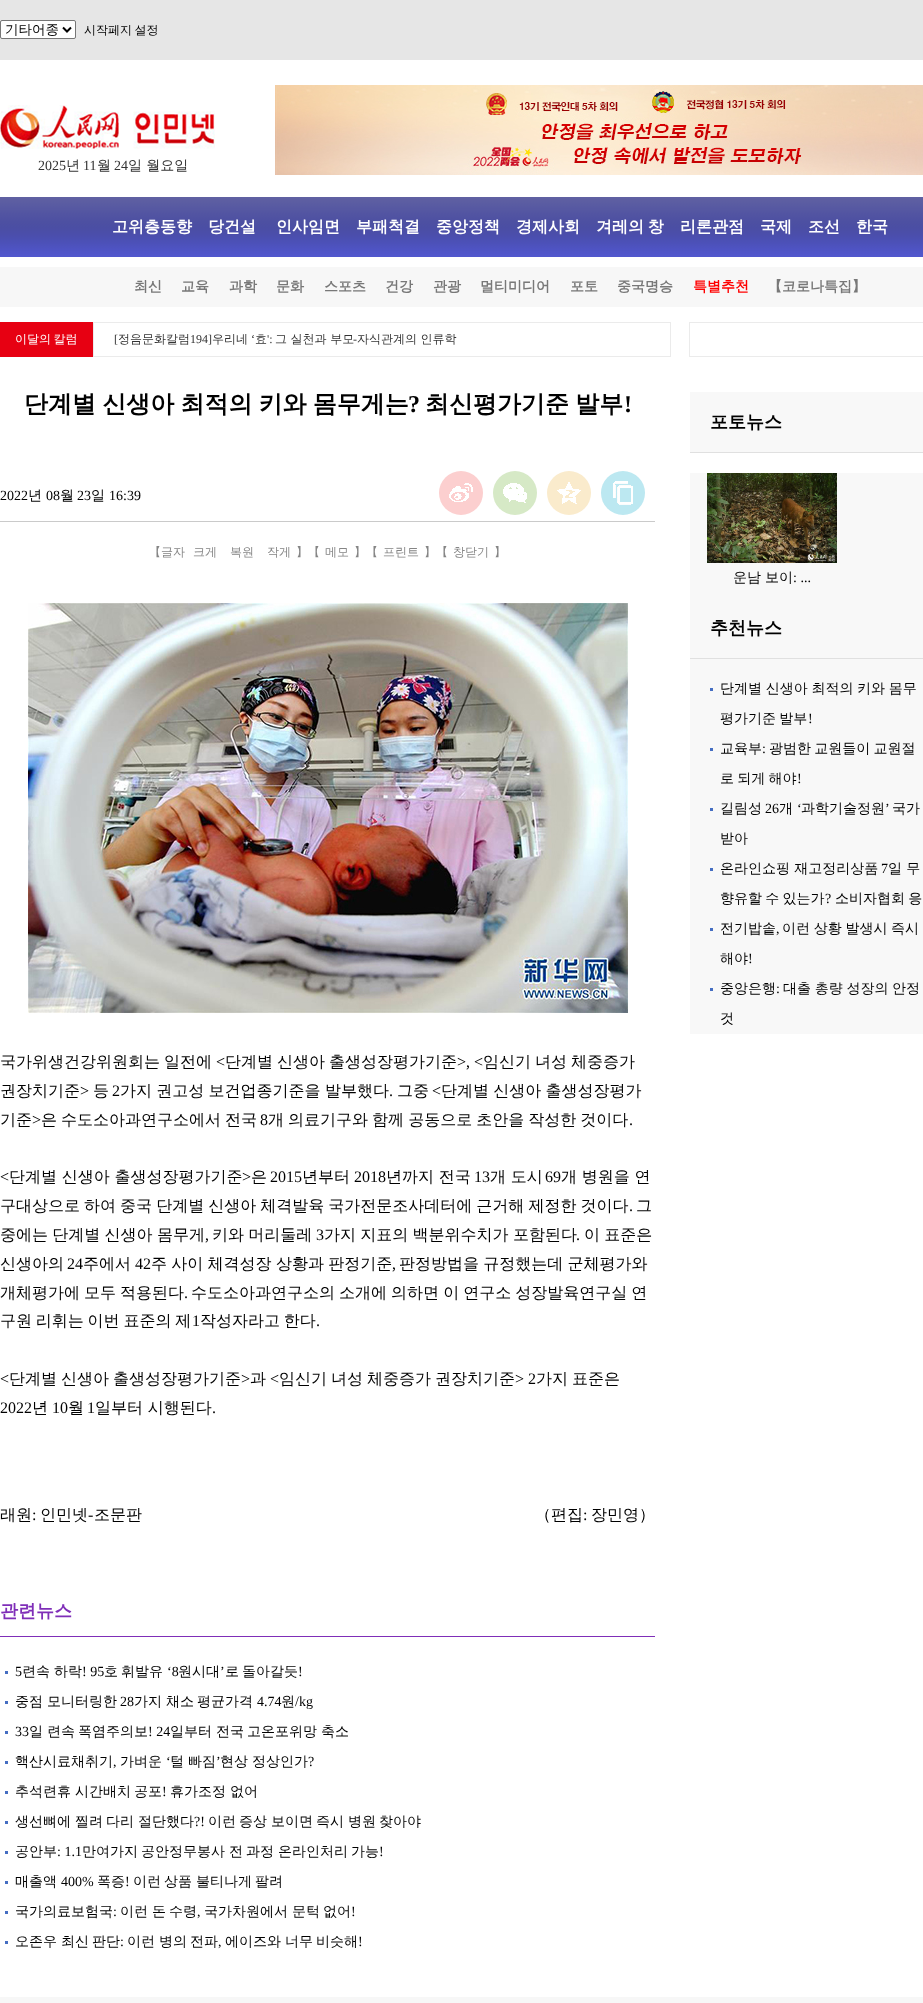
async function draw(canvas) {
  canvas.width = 923
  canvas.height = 2003
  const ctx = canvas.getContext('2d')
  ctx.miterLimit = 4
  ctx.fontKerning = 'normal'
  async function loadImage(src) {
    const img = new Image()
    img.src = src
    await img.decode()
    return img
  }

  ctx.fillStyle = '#fff'
  ctx.fillRect(0, 0, 923, 2003)
  ctx.fillStyle = '#e6e6e6'
  ctx.fillRect(0, 0, 923, 60)
  ctx.fillStyle = '#fff'
  ctx.beginPath()
  ctx.roundRect(0.5, 20.5, 75, 18, 1.5)
  ctx.fill()
  ctx.strokeStyle = '#767676'
  ctx.stroke()
  ctx.beginPath()
  ctx.moveTo(63, 27.5)
  ctx.lineTo(67, 31.5)
  ctx.lineTo(71, 27.5)
  ctx.strokeStyle = '#000'
  ctx.lineWidth = 2
  ctx.stroke()
  ctx.font = '500 13.5px WenQuanYi Zen Hei'
  ctx.fillStyle = '#000'
  ctx.fillText('기타어종', 5, 34)
  ctx.wordSpacing = '-1px'
  ctx.font = '500 12px WenQuanYi Zen Hei'
  ctx.fillText('시작페지 설정', 84, 34)
  ctx.drawImage(await loadImage('image0.png'), 0, 105, 215, 44)
  ctx.wordSpacing = '0px'
  ctx.font = '14px Liberation Serif'
  ctx.fillStyle = '#333'
  ctx.fillText('2025', 38, 170)
  ctx.font = '500 14px WenQuanYi Zen Hei'
  ctx.fillText('년', 66, 170)
  ctx.font = '14px Liberation Serif'
  ctx.fillText('11', 83, 170)
  ctx.font = '500 14px WenQuanYi Zen Hei'
  ctx.fillText('월', 97, 170)
  ctx.font = '14px Liberation Serif'
  ctx.fillText('24', 114, 170)
  ctx.font = '500 14px WenQuanYi Zen Hei'
  ctx.fillText('일 월요일', 128, 170)
  ctx.drawImage(await loadImage('image1.png'), 275, 85, 648, 90)
  ctx.drawImage(await loadImage('image2.png'), 0, 197, 923, 60)
  ctx.font = 'bold 16px WenQuanYi Zen Hei'
  ctx.fillStyle = '#fff'
  ctx.fillText('고위층동향', 112, 232)
  ctx.fillText('당건설', 208, 232)
  ctx.fillText('인사임면', 276, 232)
  ctx.fillText('부패척결', 356, 232)
  ctx.fillText('중앙정책', 436, 232)
  ctx.fillText('경제사회', 516, 232)
  ctx.wordSpacing = '-1px'
  ctx.fillText('겨레의 창', 596, 232)
  ctx.wordSpacing = '0px'
  ctx.fillText('리론관점', 680, 232)
  ctx.fillText('국제', 760, 232)
  ctx.fillText('조선', 808, 232)
  ctx.fillText('한국', 856, 232)
  ctx.fillStyle = '#f7f7f7'
  ctx.fillRect(0, 267, 923, 40)
  ctx.font = 'bold 14px WenQuanYi Zen Hei'
  ctx.fillStyle = '#787878'
  ctx.fillText('최신', 134, 291)
  ctx.fillText('교육', 181, 291)
  ctx.fillText('과학', 229, 291)
  ctx.fillText('문화', 276, 291)
  ctx.fillText('스포츠', 324, 291)
  ctx.fillText('건강', 385, 291)
  ctx.fillText('관광', 433, 291)
  ctx.fillText('멀티미디어', 480, 291)
  ctx.fillText('포토', 570, 291)
  ctx.fillText('중국명승', 617, 291)
  ctx.fillStyle = '#f00'
  ctx.fillText('특별추천', 693, 291)
  ctx.fillStyle = '#787878'
  ctx.fillText('【코로나특집】', 768, 291)
  ctx.fillStyle = '#e70012'
  ctx.fillRect(0, 322, 93, 35)
  ctx.wordSpacing = '-1px'
  ctx.font = '500 12px WenQuanYi Zen Hei'
  ctx.fillStyle = '#fff'
  ctx.fillText('이달의 칼럼', 15, 343)
  ctx.strokeStyle = '#ebebeb'
  ctx.lineWidth = 1
  ctx.strokeRect(93.5, 322.5, 577, 34)
  ctx.wordSpacing = '0px'
  ctx.font = '12px Liberation Serif'
  ctx.fillStyle = '#333'
  ctx.fillText('[', 114, 343)
  ctx.font = '500 12px WenQuanYi Zen Hei'
  ctx.fillText('정음문화칼럼', 118, 343)
  ctx.font = '12px Liberation Serif'
  ctx.fillText('194]', 190, 343)
  ctx.font = '500 12px WenQuanYi Zen Hei'
  ctx.fillText('우리네', 212, 343)
  ctx.font = '12px Liberation Serif'
  ctx.fillText('‘', 251, 343)
  ctx.font = '500 12px WenQuanYi Zen Hei'
  ctx.fillText('효', 255, 343)
  ctx.font = '12px Liberation Serif'
  ctx.fillText('\':', 267, 343)
  ctx.font = '500 12px WenQuanYi Zen Hei'
  ctx.fillText('그 실천과 부모', 275, 343)
  ctx.font = '12px Liberation Serif'
  ctx.fillText('-', 353, 343)
  ctx.font = '500 12px WenQuanYi Zen Hei'
  ctx.fillText('자식관계의 인류학', 357, 343)
  ctx.strokeRect(689.5, 322.5, 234, 34)
  ctx.wordSpacing = '-1px'
  ctx.font = 'bold 24px WenQuanYi Zen Hei'
  ctx.fillStyle = '#000'
  ctx.fillText('단계별 신생아 최적의 키와 몸무게는', 24, 412)
  ctx.wordSpacing = '0px'
  ctx.font = 'bold 24px Liberation Serif'
  ctx.fillText('?', 408, 412)
  ctx.wordSpacing = '-1px'
  ctx.font = 'bold 24px WenQuanYi Zen Hei'
  ctx.fillText('최신평가기준 발부', 425, 412)
  ctx.wordSpacing = '0px'
  ctx.font = 'bold 24px Liberation Serif'
  ctx.fillText('!', 624, 412)
  ctx.font = '14px Liberation Serif'
  ctx.fillText('2022', 0, 500)
  ctx.font = '500 14px WenQuanYi Zen Hei'
  ctx.fillText('년', 28, 500)
  ctx.font = '14px Liberation Serif'
  ctx.fillText('08', 46, 500)
  ctx.font = '500 14px WenQuanYi Zen Hei'
  ctx.fillText('월', 60, 500)
  ctx.font = '14px Liberation Serif'
  ctx.fillText('23', 77, 500)
  ctx.font = '500 14px WenQuanYi Zen Hei'
  ctx.fillText('일', 91, 500)
  ctx.font = '14px Liberation Serif'
  ctx.fillText('16:39', 109, 500)
  ctx.fillStyle = '#fccfcf'
  ctx.beginPath()
  ctx.arc(461, 493, 22, 0, 2 * Math.PI)
  ctx.fill()
  ctx.drawImage(await loadImage('image3.png'), 449, 483, 24, 19)
  ctx.fillStyle = '#d6e9c6'
  ctx.beginPath()
  ctx.arc(515, 493, 22, 0, 2 * Math.PI)
  ctx.fill()
  ctx.drawImage(await loadImage('image4.png'), 503, 483, 24, 20)
  ctx.fillStyle = '#faebcc'
  ctx.beginPath()
  ctx.arc(569, 493, 22, 0, 2 * Math.PI)
  ctx.fill()
  ctx.drawImage(await loadImage('image5.png'), 557, 482, 24, 22)
  ctx.fillStyle = '#bce8f1'
  ctx.beginPath()
  ctx.arc(623, 493, 22, 0, 2 * Math.PI)
  ctx.fill()
  ctx.drawImage(await loadImage('image6.png'), 613, 481, 20, 24)
  ctx.fillStyle = '#cacaca'
  ctx.fillRect(0, 521, 655, 1)
  ctx.font = '500 12px WenQuanYi Zen Hei'
  ctx.fillStyle = '#858585'
  ctx.fillText('【글자', 149, 556)
  ctx.fillText('크게', 193, 556)
  ctx.fillText('복원', 230, 556)
  ctx.fillText('작게', 267, 556)
  ctx.fillText('】【', 296, 556)
  ctx.fillText('메모', 325, 556)
  ctx.fillText('】【', 354, 556)
  ctx.fillText('프린트', 383, 556)
  ctx.fillText('】【', 424, 556)
  ctx.fillText('창닫기', 453, 556)
  ctx.fillText('】', 494, 556)
  ctx.drawImage(await loadImage('image7.png'), 28, 603, 600, 410)
  ctx.font = '500 16px WenQuanYi Zen Hei'
  ctx.fillStyle = '#000'
  ctx.fillText('국가위생건강위원회는', 0, 1067)
  ctx.fillText('일전에', 164, 1067)
  ctx.font = '16px Liberation Serif'
  ctx.fillText('<', 216, 1067)
  ctx.font = '500 16px WenQuanYi Zen Hei'
  ctx.fillText('단계별', 225, 1067)
  ctx.fillText('신생아', 277, 1067)
  ctx.fillText('출생성장평가기준', 329, 1067)
  ctx.font = '16px Liberation Serif'
  ctx.fillText('>, <', 457, 1067)
  ctx.font = '500 16px WenQuanYi Zen Hei'
  ctx.fillText('임신기', 483, 1067)
  ctx.fillText('녀성', 535, 1067)
  ctx.fillText('체중증가', 571, 1067)
  ctx.fillText('권장치기준', 0, 1096)
  ctx.font = '16px Liberation Serif'
  ctx.fillText('>', 80, 1096)
  ctx.font = '500 16px WenQuanYi Zen Hei'
  ctx.fillText('등', 93, 1096)
  ctx.font = '16px Liberation Serif'
  ctx.fillText('2', 112, 1096)
  ctx.wordSpacing = '-0.5px'
  ctx.font = '500 16px WenQuanYi Zen Hei'
  ctx.fillText('가지 권고성 보건업종기준을 발부했다', 120, 1096)
  ctx.wordSpacing = '0px'
  ctx.fillText('그중', 397, 1096)
  ctx.font = '16px Liberation Serif'
  ctx.fillText('<', 432, 1096)
  ctx.wordSpacing = '-0.5px'
  ctx.font = '500 16px WenQuanYi Zen Hei'
  ctx.fillText('단계별 신생아 출생성장평가', 441, 1096)
  ctx.wordSpacing = '0px'
  ctx.font = '16px Liberation Serif'
  ctx.fillText('.', 389, 1096)
  ctx.font = '500 16px WenQuanYi Zen Hei'
  ctx.fillText('기준', 0, 1125)
  ctx.font = '16px Liberation Serif'
  ctx.fillText('>', 32, 1125)
  ctx.wordSpacing = '-0.75px'
  ctx.font = '500 16px WenQuanYi Zen Hei'
  ctx.fillText('은 수도소아과연구소에서 전국', 41, 1125)
  ctx.wordSpacing = '0px'
  ctx.font = '16px Liberation Serif'
  ctx.fillText('8', 260, 1125)
  ctx.wordSpacing = '-0.75px'
  ctx.font = '500 16px WenQuanYi Zen Hei'
  ctx.fillText('개 의료기구와 함께 공동으로 초안을 작성한 것이다', 268, 1125)
  ctx.wordSpacing = '0px'
  ctx.font = '16px Liberation Serif'
  ctx.fillText('.', 629, 1125)
  ctx.fillText('<', 0, 1182)
  ctx.font = '500 16px WenQuanYi Zen Hei'
  ctx.fillText('단계별 신생아 출생성장평가기준', 9, 1182)
  ctx.font = '16px Liberation Serif'
  ctx.fillText('>', 242, 1182)
  ctx.font = '500 16px WenQuanYi Zen Hei'
  ctx.fillText('은', 251, 1182)
  ctx.font = '16px Liberation Serif'
  ctx.fillText('2015', 270, 1182)
  ctx.font = '500 16px WenQuanYi Zen Hei'
  ctx.fillText('년부터', 302, 1182)
  ctx.font = '16px Liberation Serif'
  ctx.fillText('2018', 354, 1182)
  ctx.font = '500 16px WenQuanYi Zen Hei'
  ctx.fillText('년까지 전국', 386, 1182)
  ctx.font = '16px Liberation Serif'
  ctx.fillText('13', 474, 1182)
  ctx.font = '500 16px WenQuanYi Zen Hei'
  ctx.fillText('개 도시', 490, 1182)
  ctx.font = '16px Liberation Serif'
  ctx.fillText('69', 545, 1182)
  ctx.font = '500 16px WenQuanYi Zen Hei'
  ctx.fillText('개 병원을 연', 561, 1182)
  ctx.wordSpacing = '-0.75px'
  ctx.fillText('구대상으로 하여 중국 단계별 신생아 체격발육 국가전문조사데터에 근거해 제정한 것이다', 0, 1211)
  ctx.wordSpacing = '0px'
  ctx.font = '16px Liberation Serif'
  ctx.fillText('.', 629, 1211)
  ctx.font = '500 16px WenQuanYi Zen Hei'
  ctx.fillText('그', 636, 1211)
  ctx.wordSpacing = '-0.5px'
  ctx.fillText('중에는 단계별 신생아 몸무게', 0, 1240)
  ctx.wordSpacing = '0px'
  ctx.font = '16px Liberation Serif'
  ctx.fillText(',', 205, 1240)
  ctx.wordSpacing = '-0.5px'
  ctx.font = '500 16px WenQuanYi Zen Hei'
  ctx.fillText('키와 머리둘레', 212, 1240)
  ctx.wordSpacing = '0px'
  ctx.font = '16px Liberation Serif'
  ctx.fillText('3', 316, 1240)
  ctx.wordSpacing = '-0.5px'
  ctx.font = '500 16px WenQuanYi Zen Hei'
  ctx.fillText('가지 지표의 백분위수치가 포함된다', 324, 1240)
  ctx.wordSpacing = '0px'
  ctx.font = '16px Liberation Serif'
  ctx.fillText('.', 576, 1240)
  ctx.wordSpacing = '-0.5px'
  ctx.font = '500 16px WenQuanYi Zen Hei'
  ctx.fillText('이 표준은', 584, 1240)
  ctx.wordSpacing = '0px'
  ctx.fillText('신생아의', 0, 1269)
  ctx.font = '16px Liberation Serif'
  ctx.fillText('24', 67, 1269)
  ctx.font = '500 16px WenQuanYi Zen Hei'
  ctx.fillText('주에서', 83, 1269)
  ctx.font = '16px Liberation Serif'
  ctx.fillText('42', 135, 1269)
  ctx.wordSpacing = '-0.5px'
  ctx.font = '500 16px WenQuanYi Zen Hei'
  ctx.fillText('주 사이 체격성장 상황과 판정기준', 151, 1269)
  ctx.fillText('판정방법을 규정했는데 군체평가와', 399, 1269)
  ctx.wordSpacing = '0px'
  ctx.font = '16px Liberation Serif'
  ctx.fillText(',', 392, 1269)
  ctx.wordSpacing = '-0.75px'
  ctx.font = '500 16px WenQuanYi Zen Hei'
  ctx.fillText('개체평가에 모두 적용된다', 0, 1298)
  ctx.wordSpacing = '0px'
  ctx.font = '16px Liberation Serif'
  ctx.fillText('.', 184, 1298)
  ctx.wordSpacing = '-0.75px'
  ctx.font = '500 16px WenQuanYi Zen Hei'
  ctx.fillText('수도소아과연구소의 소개에 의하면 이 연구소 성장발육연구실 연', 191, 1298)
  ctx.wordSpacing = '-1px'
  ctx.fillText('구원 리휘는 이번 표준의 제', 0, 1326)
  ctx.wordSpacing = '0px'
  ctx.font = '16px Liberation Serif'
  ctx.fillText('1', 192, 1326)
  ctx.wordSpacing = '-1px'
  ctx.font = '500 16px WenQuanYi Zen Hei'
  ctx.fillText('작성자라고 한다', 200, 1326)
  ctx.wordSpacing = '0px'
  ctx.font = '16px Liberation Serif'
  ctx.fillText('.', 316, 1326)
  ctx.fillText('<', 0, 1384)
  ctx.font = '500 16px WenQuanYi Zen Hei'
  ctx.fillText('단계별', 9, 1384)
  ctx.fillText('신생아', 61, 1384)
  ctx.fillText('출생성장평가기준', 113, 1384)
  ctx.font = '16px Liberation Serif'
  ctx.fillText('>', 241, 1384)
  ctx.font = '500 16px WenQuanYi Zen Hei'
  ctx.fillText('과', 250, 1384)
  ctx.font = '16px Liberation Serif'
  ctx.fillText('<', 270, 1384)
  ctx.font = '500 16px WenQuanYi Zen Hei'
  ctx.fillText('임신기', 279, 1384)
  ctx.fillText('녀성', 331, 1384)
  ctx.fillText('체중증가', 367, 1384)
  ctx.fillText('권장치기준', 435, 1384)
  ctx.font = '16px Liberation Serif'
  ctx.fillText('> 2', 515, 1384)
  ctx.font = '500 16px WenQuanYi Zen Hei'
  ctx.fillText('가지', 536, 1384)
  ctx.fillText('표준은', 572, 1384)
  ctx.font = '16px Liberation Serif'
  ctx.fillText('2022', 0, 1413)
  ctx.font = '500 16px WenQuanYi Zen Hei'
  ctx.fillText('년', 32, 1413)
  ctx.font = '16px Liberation Serif'
  ctx.fillText('10', 52, 1413)
  ctx.font = '500 16px WenQuanYi Zen Hei'
  ctx.fillText('월', 68, 1413)
  ctx.font = '16px Liberation Serif'
  ctx.fillText('1', 87, 1413)
  ctx.font = '500 16px WenQuanYi Zen Hei'
  ctx.fillText('일부터 시행된다', 95, 1413)
  ctx.font = '16px Liberation Serif'
  ctx.fillText('.', 212, 1413)
  ctx.font = '500 16px WenQuanYi Zen Hei'
  ctx.fillText('래원', 0, 1520)
  ctx.font = '16px Liberation Serif'
  ctx.fillText(':', 32, 1520)
  ctx.font = '500 16px WenQuanYi Zen Hei'
  ctx.fillText('인민넷', 40, 1520)
  ctx.font = '16px Liberation Serif'
  ctx.fillText('-', 88, 1520)
  ctx.font = '500 16px WenQuanYi Zen Hei'
  ctx.fillText('조문판', 94, 1520)
  ctx.fillText('（편집', 535, 1520)
  ctx.font = '16px Liberation Serif'
  ctx.fillText(':', 583, 1520)
  ctx.font = '500 16px WenQuanYi Zen Hei'
  ctx.fillText('장민영）', 591, 1520)
  ctx.fillStyle = '#7f2eb8'
  ctx.fillRect(0, 1636, 655, 1)
  ctx.font = 'bold 18px WenQuanYi Zen Hei'
  ctx.fillText('관련뉴스', 0, 1617)
  ctx.fillStyle = '#456ec2'
  ctx.fillRect(5, 1671, 3, 3)
  ctx.font = '14px Liberation Serif'
  ctx.fillStyle = '#000'
  ctx.fillText('5', 15, 1676)
  ctx.font = '500 14px WenQuanYi Zen Hei'
  ctx.fillText('련속', 22, 1676)
  ctx.fillText('하락', 54, 1676)
  ctx.font = '14px Liberation Serif'
  ctx.fillText('! 95', 82, 1676)
  ctx.font = '500 14px WenQuanYi Zen Hei'
  ctx.fillText('호', 104, 1676)
  ctx.fillText('휘발유', 121, 1676)
  ctx.font = '14px Liberation Serif'
  ctx.fillText('‘8', 167, 1676)
  ctx.font = '500 14px WenQuanYi Zen Hei'
  ctx.fillText('원시대', 178, 1676)
  ctx.font = '14px Liberation Serif'
  ctx.fillText('’', 220, 1676)
  ctx.font = '500 14px WenQuanYi Zen Hei'
  ctx.fillText('로', 225, 1676)
  ctx.fillText('돌아갈듯', 242, 1676)
  ctx.font = '14px Liberation Serif'
  ctx.fillText('!', 298, 1676)
  ctx.fillStyle = '#456ec2'
  ctx.fillRect(5, 1701, 3, 3)
  ctx.font = '500 14px WenQuanYi Zen Hei'
  ctx.fillStyle = '#000'
  ctx.fillText('중점', 15, 1706)
  ctx.fillText('모니터링한', 47, 1706)
  ctx.font = '14px Liberation Serif'
  ctx.fillText('28', 120, 1706)
  ctx.font = '500 14px WenQuanYi Zen Hei'
  ctx.fillText('가지', 134, 1706)
  ctx.fillText('채소', 166, 1706)
  ctx.fillText('평균가격', 197, 1706)
  ctx.font = '14px Liberation Serif'
  ctx.fillText('4.74', 257, 1706)
  ctx.font = '500 14px WenQuanYi Zen Hei'
  ctx.fillText('원', 281, 1706)
  ctx.font = '14px Liberation Serif'
  ctx.fillText('/kg', 295, 1706)
  ctx.fillStyle = '#456ec2'
  ctx.fillRect(5, 1731, 3, 3)
  ctx.fillStyle = '#000'
  ctx.fillText('33', 15, 1736)
  ctx.font = '500 14px WenQuanYi Zen Hei'
  ctx.fillText('일', 29, 1736)
  ctx.fillText('련속', 47, 1736)
  ctx.fillText('폭염주의보', 78, 1736)
  ctx.font = '14px Liberation Serif'
  ctx.fillText('! 24', 148, 1736)
  ctx.font = '500 14px WenQuanYi Zen Hei'
  ctx.fillText('일부터', 170, 1736)
  ctx.fillText('전국', 216, 1736)
  ctx.fillText('고온포위망', 247, 1736)
  ctx.fillText('축소', 321, 1736)
  ctx.fillStyle = '#456ec2'
  ctx.fillRect(5, 1761, 3, 3)
  ctx.fillStyle = '#000'
  ctx.fillText('핵산시료채취기', 15, 1766)
  ctx.font = '14px Liberation Serif'
  ctx.fillText(',', 113, 1766)
  ctx.font = '500 14px WenQuanYi Zen Hei'
  ctx.fillText('가벼운', 120, 1766)
  ctx.font = '14px Liberation Serif'
  ctx.fillText('‘', 166, 1766)
  ctx.font = '500 14px WenQuanYi Zen Hei'
  ctx.fillText('털', 170, 1766)
  ctx.fillText('빠짐', 188, 1766)
  ctx.font = '14px Liberation Serif'
  ctx.fillText('’', 216, 1766)
  ctx.font = '500 14px WenQuanYi Zen Hei'
  ctx.fillText('현상', 220, 1766)
  ctx.fillText('정상인가', 252, 1766)
  ctx.font = '14px Liberation Serif'
  ctx.fillText('?', 308, 1766)
  ctx.fillStyle = '#456ec2'
  ctx.fillRect(5, 1791, 3, 3)
  ctx.font = '500 14px WenQuanYi Zen Hei'
  ctx.fillStyle = '#000'
  ctx.fillText('추석련휴', 15, 1796)
  ctx.fillText('시간배치', 75, 1796)
  ctx.fillText('공포', 134, 1796)
  ctx.font = '14px Liberation Serif'
  ctx.fillText('!', 162, 1796)
  ctx.font = '500 14px WenQuanYi Zen Hei'
  ctx.fillText('휴가조정', 170, 1796)
  ctx.fillText('없어', 230, 1796)
  ctx.fillStyle = '#456ec2'
  ctx.fillRect(5, 1821, 3, 3)
  ctx.fillStyle = '#000'
  ctx.fillText('생선뼈에', 15, 1826)
  ctx.fillText('찔려', 75, 1826)
  ctx.fillText('다리', 106, 1826)
  ctx.fillText('절단했다', 138, 1826)
  ctx.font = '14px Liberation Serif'
  ctx.fillText('?!', 194, 1826)
  ctx.font = '500 14px WenQuanYi Zen Hei'
  ctx.fillText('이런', 208, 1826)
  ctx.fillText('증상', 239, 1826)
  ctx.fillText('보이면', 271, 1826)
  ctx.fillText('즉시', 316, 1826)
  ctx.fillText('병원', 348, 1826)
  ctx.fillText('찾아야', 379, 1826)
  ctx.fillStyle = '#456ec2'
  ctx.fillRect(5, 1851, 3, 3)
  ctx.fillStyle = '#000'
  ctx.fillText('공안부', 15, 1856)
  ctx.font = '14px Liberation Serif'
  ctx.fillText(': 1.1', 57, 1856)
  ctx.font = '500 14px WenQuanYi Zen Hei'
  ctx.fillText('만여가지', 82, 1856)
  ctx.fillText('공안정무봉사', 141, 1856)
  ctx.fillText('전', 229, 1856)
  ctx.fillText('과정', 246, 1856)
  ctx.fillText('온라인처리', 278, 1856)
  ctx.fillText('가능', 351, 1856)
  ctx.font = '14px Liberation Serif'
  ctx.fillText('!', 379, 1856)
  ctx.fillStyle = '#456ec2'
  ctx.fillRect(5, 1881, 3, 3)
  ctx.font = '500 14px WenQuanYi Zen Hei'
  ctx.fillStyle = '#000'
  ctx.fillText('매출액', 15, 1886)
  ctx.font = '14px Liberation Serif'
  ctx.fillText('400%', 61, 1886)
  ctx.font = '500 14px WenQuanYi Zen Hei'
  ctx.fillText('폭증', 97, 1886)
  ctx.font = '14px Liberation Serif'
  ctx.fillText('!', 125, 1886)
  ctx.font = '500 14px WenQuanYi Zen Hei'
  ctx.fillText('이런', 133, 1886)
  ctx.fillText('상품', 164, 1886)
  ctx.fillText('불티나게', 196, 1886)
  ctx.fillText('팔려', 255, 1886)
  ctx.fillStyle = '#456ec2'
  ctx.fillRect(5, 1911, 3, 3)
  ctx.fillStyle = '#000'
  ctx.fillText('국가의료보험국', 15, 1916)
  ctx.font = '14px Liberation Serif'
  ctx.fillText(':', 113, 1916)
  ctx.font = '500 14px WenQuanYi Zen Hei'
  ctx.fillText('이런', 120, 1916)
  ctx.fillText('돈', 152, 1916)
  ctx.fillText('수령', 169, 1916)
  ctx.font = '14px Liberation Serif'
  ctx.fillText(',', 197, 1916)
  ctx.font = '500 14px WenQuanYi Zen Hei'
  ctx.fillText('국가차원에서', 204, 1916)
  ctx.fillText('문턱', 292, 1916)
  ctx.fillText('없어', 323, 1916)
  ctx.font = '14px Liberation Serif'
  ctx.fillText('!', 351, 1916)
  ctx.fillStyle = '#456ec2'
  ctx.fillRect(5, 1941, 3, 3)
  ctx.font = '500 14px WenQuanYi Zen Hei'
  ctx.fillStyle = '#000'
  ctx.fillText('오존우', 15, 1946)
  ctx.fillText('최신', 61, 1946)
  ctx.fillText('판단', 92, 1946)
  ctx.font = '14px Liberation Serif'
  ctx.fillText(':', 120, 1946)
  ctx.font = '500 14px WenQuanYi Zen Hei'
  ctx.fillText('이런', 127, 1946)
  ctx.fillText('병의', 159, 1946)
  ctx.fillText('전파', 190, 1946)
  ctx.font = '14px Liberation Serif'
  ctx.fillText(',', 218, 1946)
  ctx.font = '500 14px WenQuanYi Zen Hei'
  ctx.fillText('에이즈와', 225, 1946)
  ctx.fillText('너무', 285, 1946)
  ctx.fillText('비슷해', 316, 1946)
  ctx.font = '14px Liberation Serif'
  ctx.fillText('!', 358, 1946)
  ctx.fillStyle = '#f8f8f8'
  ctx.fillRect(690, 392, 233, 60)
  ctx.fillStyle = '#e0e0e0'
  ctx.fillRect(690, 452, 233, 1)
  ctx.font = 'bold 18px WenQuanYi Zen Hei'
  ctx.fillStyle = '#000'
  ctx.fillText('포토뉴스', 710, 428)
  ctx.fillStyle = '#f8f8f8'
  ctx.fillRect(690, 473, 233, 561)
  ctx.drawImage(await loadImage('image8.png'), 707, 473, 130, 90)
  ctx.font = '500 14px WenQuanYi Zen Hei'
  ctx.fillStyle = '#000'
  ctx.fillText('운남', 733, 582)
  ctx.fillText('보이', 765, 582)
  ctx.font = '14px Liberation Serif'
  ctx.fillText(': ...', 793, 582)
  ctx.fillStyle = '#e0e0e0'
  ctx.fillRect(690, 658, 233, 1)
  ctx.font = 'bold 18px WenQuanYi Zen Hei'
  ctx.fillStyle = '#000'
  ctx.fillText('추천뉴스', 710, 634)
  ctx.fillStyle = '#456ec2'
  ctx.fillRect(710, 688, 3, 3)
  ctx.wordSpacing = '-0.5px'
  ctx.font = '500 14px WenQuanYi Zen Hei'
  ctx.fillStyle = '#000'
  ctx.fillText('단계별 신생아 최적의 키와 몸무', 720, 693)
  ctx.wordSpacing = '-1px'
  ctx.fillText('평가기준 발부', 720, 723)
  ctx.wordSpacing = '0px'
  ctx.font = '14px Liberation Serif'
  ctx.fillText('!', 808, 723)
  ctx.fillStyle = '#456ec2'
  ctx.fillRect(710, 748, 3, 3)
  ctx.font = '500 14px WenQuanYi Zen Hei'
  ctx.fillStyle = '#000'
  ctx.fillText('교육부', 720, 753)
  ctx.font = '14px Liberation Serif'
  ctx.fillText(':', 762, 753)
  ctx.wordSpacing = '-1px'
  ctx.font = '500 14px WenQuanYi Zen Hei'
  ctx.fillText('광범한 교원들이 교원절', 769, 753)
  ctx.fillText('로 되게 해야', 720, 783)
  ctx.wordSpacing = '0px'
  ctx.font = '14px Liberation Serif'
  ctx.fillText('!', 797, 783)
  ctx.fillStyle = '#456ec2'
  ctx.fillRect(710, 808, 3, 3)
  ctx.font = '500 14px WenQuanYi Zen Hei'
  ctx.fillStyle = '#000'
  ctx.fillText('길림성', 720, 813)
  ctx.font = '14px Liberation Serif'
  ctx.fillText('26', 765, 813)
  ctx.font = '500 14px WenQuanYi Zen Hei'
  ctx.fillText('개', 779, 813)
  ctx.font = '14px Liberation Serif'
  ctx.fillText('‘', 797, 813)
  ctx.font = '500 14px WenQuanYi Zen Hei'
  ctx.fillText('과학기술정원', 801, 813)
  ctx.font = '14px Liberation Serif'
  ctx.fillText('’', 885, 813)
  ctx.font = '500 14px WenQuanYi Zen Hei'
  ctx.fillText('국가', 892, 813)
  ctx.fillText('받아', 720, 843)
  ctx.fillStyle = '#456ec2'
  ctx.fillRect(710, 868, 3, 3)
  ctx.fillStyle = '#000'
  ctx.fillText('온라인쇼핑 재고정리상품', 720, 873)
  ctx.font = '14px Liberation Serif'
  ctx.fillText('7', 881, 873)
  ctx.font = '500 14px WenQuanYi Zen Hei'
  ctx.fillText('일 무', 888, 873)
  ctx.wordSpacing = '-1px'
  ctx.fillText('향유할 수 있는가', 720, 903)
  ctx.wordSpacing = '0px'
  ctx.font = '14px Liberation Serif'
  ctx.fillText('?', 825, 903)
  ctx.wordSpacing = '-1px'
  ctx.font = '500 14px WenQuanYi Zen Hei'
  ctx.fillText('소비자협회 응', 835, 903)
  ctx.fillStyle = '#456ec2'
  ctx.fillRect(710, 928, 3, 3)
  ctx.wordSpacing = '0px'
  ctx.fillStyle = '#000'
  ctx.fillText('전기밥솥', 720, 933)
  ctx.font = '14px Liberation Serif'
  ctx.fillText(',', 776, 933)
  ctx.wordSpacing = '-0.5px'
  ctx.font = '500 14px WenQuanYi Zen Hei'
  ctx.fillText('이런 상황 발생시 즉시', 782, 933)
  ctx.wordSpacing = '0px'
  ctx.fillText('해야', 720, 963)
  ctx.font = '14px Liberation Serif'
  ctx.fillText('!', 748, 963)
  ctx.fillStyle = '#456ec2'
  ctx.fillRect(710, 988, 3, 3)
  ctx.font = '500 14px WenQuanYi Zen Hei'
  ctx.fillStyle = '#000'
  ctx.fillText('중앙은행', 720, 993)
  ctx.font = '14px Liberation Serif'
  ctx.fillText(':', 776, 993)
  ctx.wordSpacing = '-0.5px'
  ctx.font = '500 14px WenQuanYi Zen Hei'
  ctx.fillText('대출 총량 성장의 안정', 783, 993)
  ctx.wordSpacing = '0px'
  ctx.fillText('것', 720, 1023)
  ctx.fillStyle = '#f7f7f7'
  ctx.fillRect(0, 1997, 923, 6)
}

draw(document.querySelector('canvas'))
